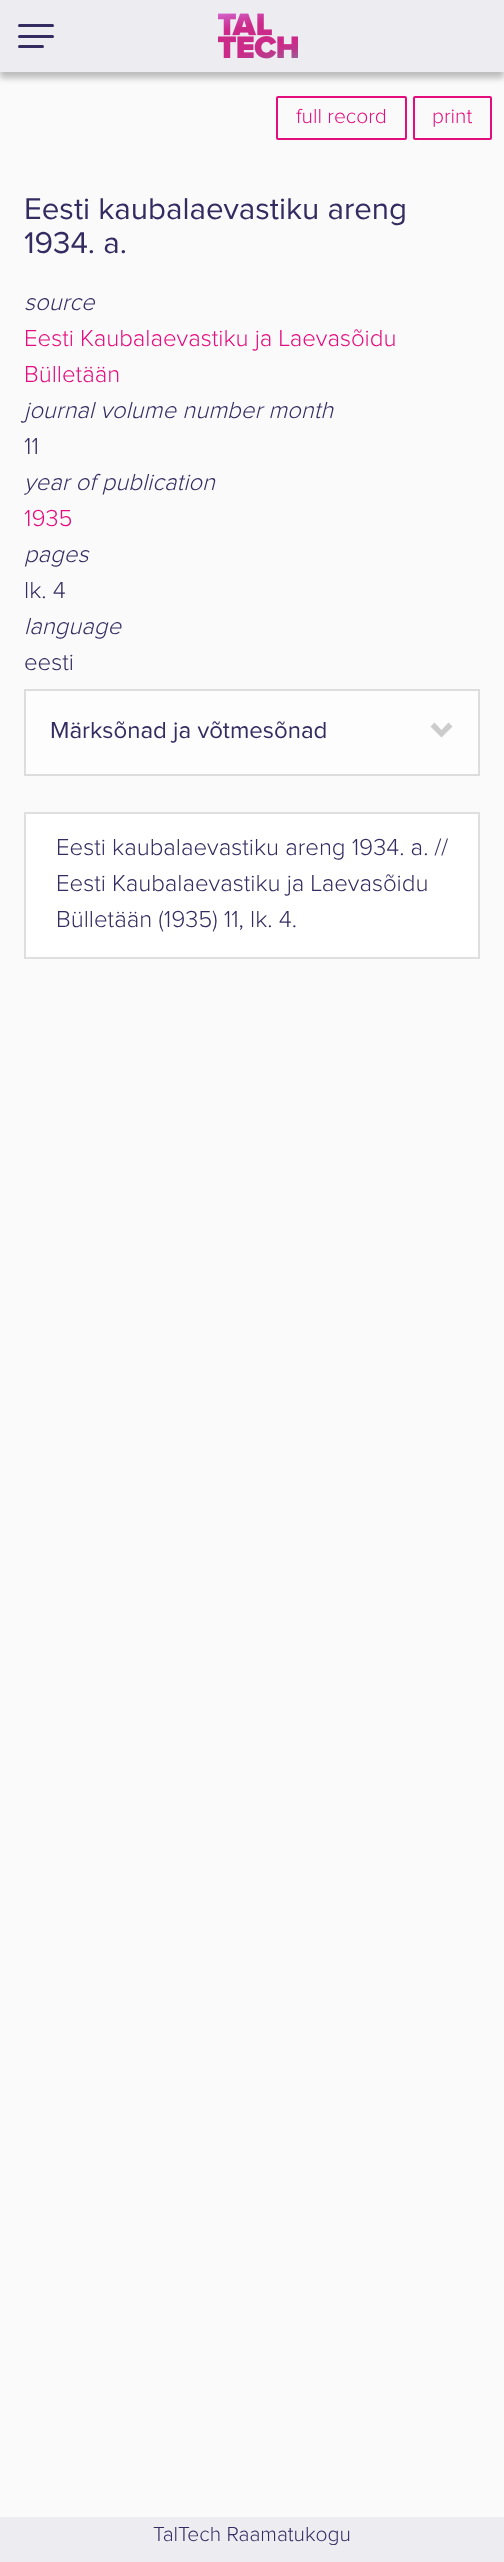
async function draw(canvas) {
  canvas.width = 504
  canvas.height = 2562
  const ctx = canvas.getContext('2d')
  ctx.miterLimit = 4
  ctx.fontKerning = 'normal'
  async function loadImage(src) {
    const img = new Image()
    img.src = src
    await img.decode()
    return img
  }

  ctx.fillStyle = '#fbfafb'
  ctx.fillRect(0, 0, 504, 2562)
  ctx.fillStyle = '#00000040'
  ctx.filter = 'blur(3px)'
  ctx.beginPath()
  ctx.rect(0, 6, 504, 72)
  ctx.fill()
  ctx.filter = 'none'
  ctx.fillStyle = '#ececf1'
  ctx.fillRect(0, 0, 504, 72)
  ctx.fillStyle = '#342c61'
  ctx.beginPath()
  ctx.roundRect(18, 35, 36, 3, 1.5)
  ctx.fill()
  ctx.beginPath()
  ctx.roundRect(18, 24, 36, 3, 1.5)
  ctx.fill()
  ctx.beginPath()
  ctx.roundRect(18, 45, 26, 3, 1.5)
  ctx.fill()
  ctx.drawImage(await loadImage('image0.png'), 218, 13, 80, 46)
  ctx.beginPath()
  ctx.roundRect(277, 97, 129, 42, 1)
  ctx.strokeStyle = '#e40d7e'
  ctx.lineWidth = 2
  ctx.stroke()
  ctx.font = '300 21px Proxima Nova'
  ctx.fillStyle = '#e40d7e'
  ctx.fillText('full record', 296, 123)
  ctx.beginPath()
  ctx.roundRect(414, 97, 77, 42, 1)
  ctx.stroke()
  ctx.fillText('print', 432, 123)
  ctx.font = '31.25px Proxima Nova'
  ctx.fillStyle = '#342c61'
  ctx.fillText('Eesti kaubalaevastiku areng', 24, 219)
  ctx.fillText('1934. a.', 24, 253)
  ctx.font = 'italic 300 24px Proxima Nova'
  ctx.fillText('source', 24, 310)
  ctx.font = '300 24px Proxima Nova'
  ctx.fillStyle = '#e40d7e'
  ctx.fillText('Eesti Kaubalaevastiku ja Laevasõidu', 24, 346)
  ctx.fillText('Bülletään', 24, 382)
  ctx.font = 'italic 300 24px Proxima Nova'
  ctx.fillStyle = '#342c61'
  ctx.fillText('journal volume number month', 24, 418)
  ctx.font = '300 24px Proxima Nova'
  ctx.fillText('11', 24, 454)
  ctx.font = 'italic 300 24px Proxima Nova'
  ctx.fillText('year of publication', 24, 490)
  ctx.font = '300 24px Proxima Nova'
  ctx.fillStyle = '#e40d7e'
  ctx.fillText('1935', 24, 526)
  ctx.font = 'italic 300 24px Proxima Nova'
  ctx.fillStyle = '#342c61'
  ctx.fillText('pages', 24, 562)
  ctx.font = '300 24px Proxima Nova'
  ctx.fillText('lk. 4', 24, 598)
  ctx.font = 'italic 300 24px Proxima Nova'
  ctx.fillText('language', 24, 634)
  ctx.font = '300 24px Proxima Nova'
  ctx.fillText('eesti', 24, 670)
  ctx.fillStyle = '#fdfdfd'
  ctx.beginPath()
  ctx.rect(25, 690, 454, 85)
  ctx.fill()
  ctx.strokeStyle = '#ddd'
  ctx.stroke()
  ctx.font = '24px Proxima Nova'
  ctx.fillStyle = '#342c61'
  ctx.fillText('Märksõnad ja võtmesõnad', 50, 738)
  ctx.fillStyle = '#ccc'
  ctx.beginPath()
  ctx.moveTo(452.5, 726.5)
  ctx.lineTo(441.5, 737.5)
  ctx.lineTo(430.5, 726.5)
  ctx.lineTo(434.5, 722.5)
  ctx.lineTo(441.5, 730)
  ctx.lineTo(448.5, 722.5)
  ctx.closePath()
  ctx.fill()
  ctx.fillStyle = '#fff'
  ctx.beginPath()
  ctx.rect(25, 813, 454, 145)
  ctx.fill()
  ctx.strokeStyle = '#dfdfdf'
  ctx.stroke()
  ctx.font = '300 24px Proxima Nova'
  ctx.fillStyle = '#342c61'
  ctx.fillText('Eesti kaubalaevastiku areng 1934. a. //', 56, 855)
  ctx.fillText('Eesti Kaubalaevastiku ja Laevasõidu', 56, 891)
  ctx.fillText('Bülletään (1935) 11, lk. 4.', 56, 927)
  ctx.fillStyle = '#ececf1'
  ctx.fillRect(0, 2517, 504, 45)
  ctx.font = '300 21px Proxima Nova'
  ctx.fillStyle = '#342c61'
  ctx.fillText('TalTech Raamatukogu', 153, 2541)
}

draw(document.querySelector('canvas'))
